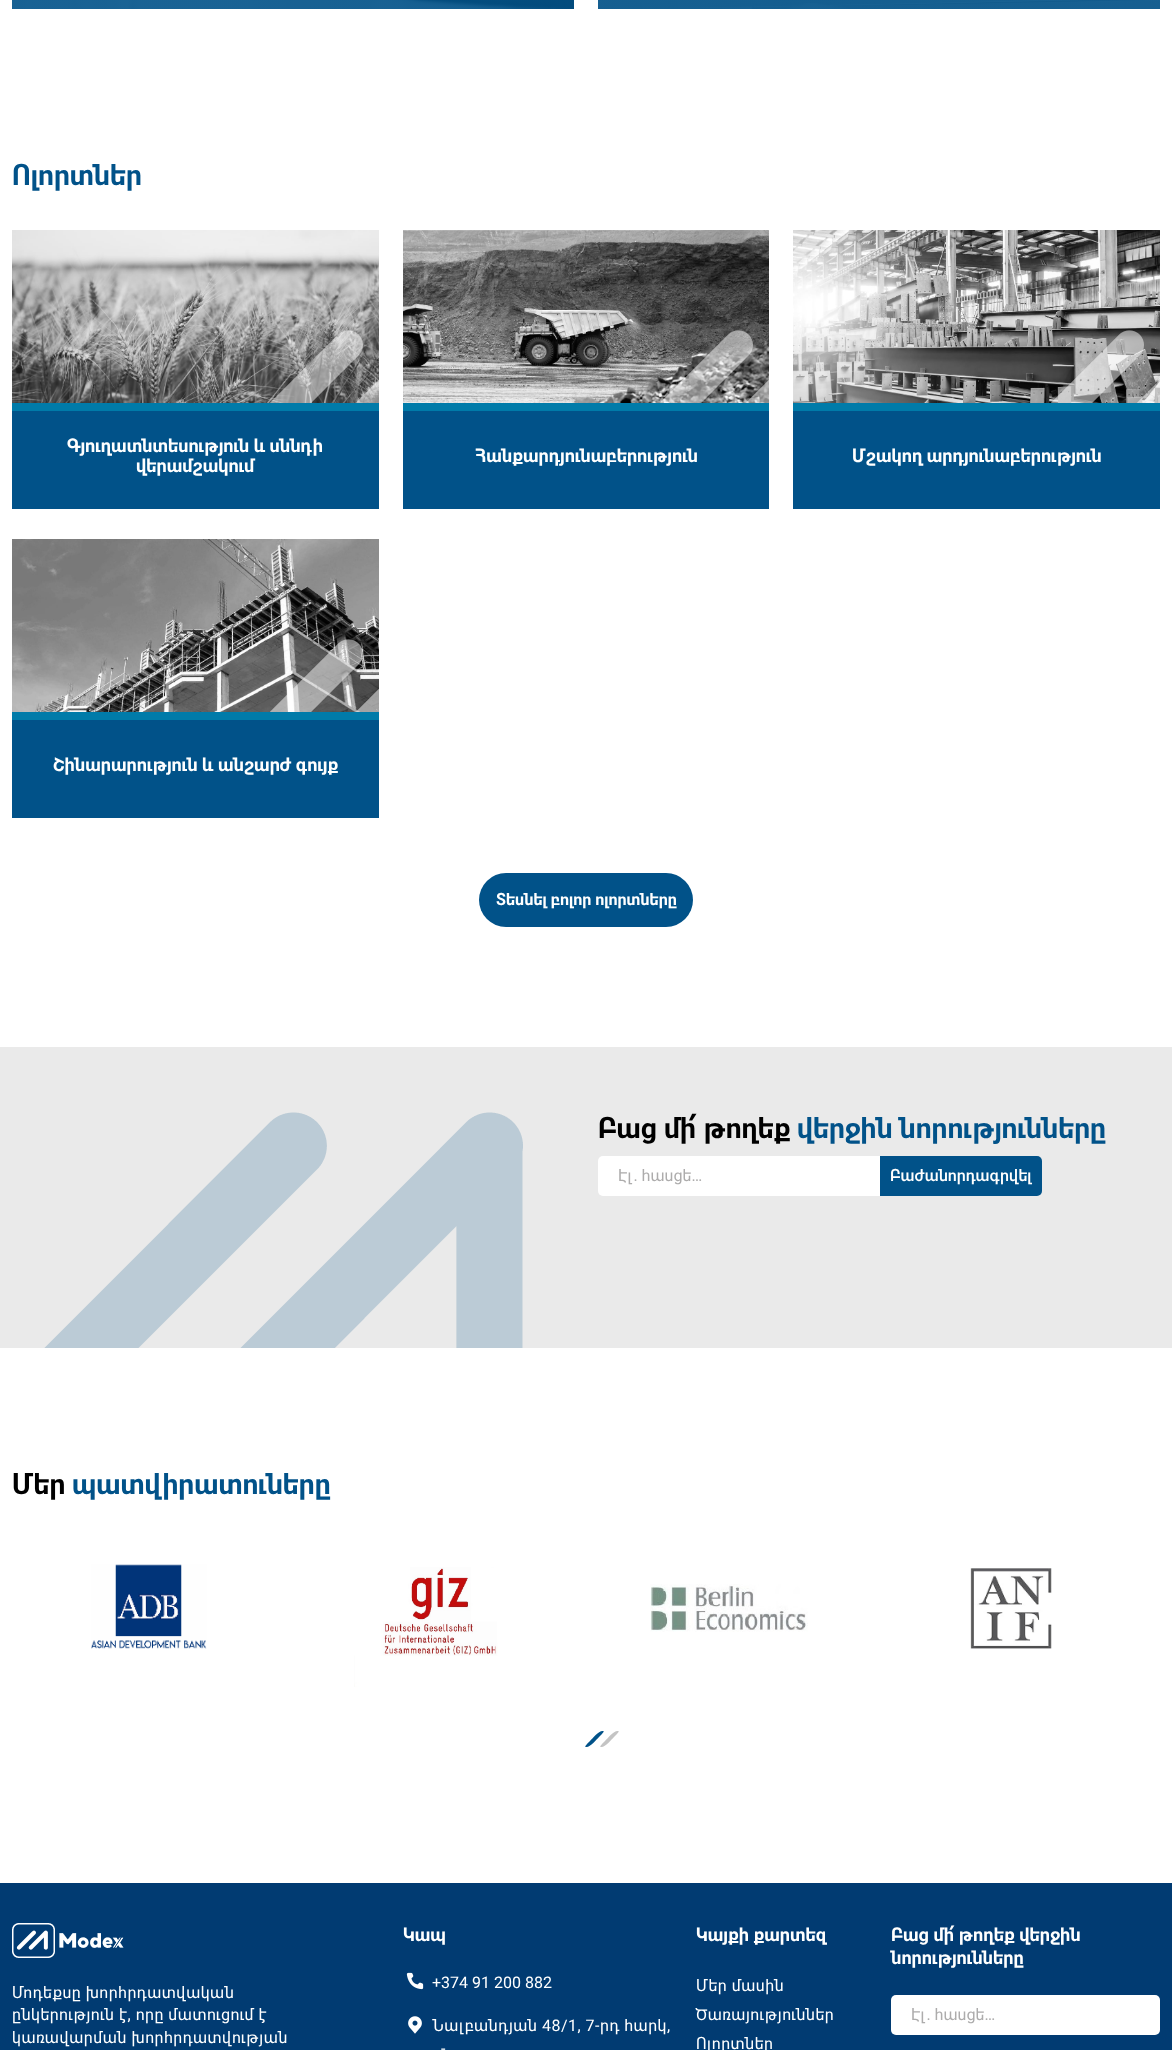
async function draw(canvas) {
  canvas.width = 1172
  canvas.height = 2050
  const ctx = canvas.getContext('2d')
  ctx.miterLimit = 4
  ctx.fontKerning = 'normal'
  async function loadImage(src) {
    const img = new Image()
    img.src = src
    await img.decode()
    return img
  }

  ctx.fillStyle = '#fff'
  ctx.fillRect(0, 0, 1172, 2050)
  ctx.drawImage(await loadImage('image0.png'), 12, 0, 562, 9)
  ctx.drawImage(await loadImage('image1.png'), 598, 0, 562, 9)
  ctx.font = 'bold 28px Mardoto'
  ctx.fillStyle = '#015289'
  ctx.fillText('Ոլորտներ', 12, 185)
  ctx.drawImage(await loadImage('image2.png'), 12, 230, 367, 173)
  ctx.drawImage(await loadImage('image3.png'), 270, 330, 109, 73)
  ctx.fillRect(12, 411, 367, 98)
  ctx.fillStyle = '#007ba9'
  ctx.fillRect(12, 403, 367, 8)
  ctx.font = 'bold 18px Mardoto'
  ctx.fillStyle = '#fff'
  ctx.fillText('Գյուղատնտեսություն և սննդի', 67, 452)
  ctx.fillText('վերամշակում', 136, 472)
  ctx.drawImage(await loadImage('image4.png'), 403, 230, 366, 173)
  ctx.drawImage(await loadImage('image5.png'), 660, 330, 109, 73)
  ctx.fillStyle = '#015289'
  ctx.fillRect(403, 411, 366, 98)
  ctx.fillStyle = '#007ba9'
  ctx.fillRect(403, 403, 366, 8)
  ctx.fillStyle = '#fff'
  ctx.fillText('Հանքարդյունաբերություն', 475, 462)
  ctx.drawImage(await loadImage('image6.png'), 793, 230, 367, 173)
  ctx.drawImage(await loadImage('image7.png'), 1051, 330, 109, 73)
  ctx.fillStyle = '#015289'
  ctx.fillRect(793, 411, 367, 98)
  ctx.fillStyle = '#007ba9'
  ctx.fillRect(793, 403, 367, 8)
  ctx.fillStyle = '#fff'
  ctx.fillText('Մշակող արդյունաբերություն', 852, 462)
  ctx.drawImage(await loadImage('image8.png'), 12, 539, 367, 173)
  ctx.drawImage(await loadImage('image9.png'), 270, 639, 109, 73)
  ctx.fillStyle = '#015289'
  ctx.fillRect(12, 720, 367, 98)
  ctx.fillStyle = '#007ba9'
  ctx.fillRect(12, 712, 367, 8)
  ctx.fillStyle = '#fff'
  ctx.fillText('Շինարարություն և անշարժ գույք', 53, 771)
  ctx.fillStyle = '#015289'
  ctx.beginPath()
  ctx.roundRect(479, 873, 214, 54, 27)
  ctx.fill()
  ctx.font = 'bold 16px Mardoto'
  ctx.fillStyle = '#fff'
  ctx.fillText('Տեսնել բոլոր ոլորտները', 496, 905)
  ctx.fillStyle = '#eaeaea'
  ctx.fillRect(0, 1047, 1172, 301)
  ctx.drawImage(await loadImage('image10.png'), 44, 1112, 479, 236)
  ctx.font = 'bold 28px Mardoto'
  ctx.fillStyle = '#000'
  ctx.fillText('Բաց մի՛ թողեք', 598, 1138)
  ctx.fillStyle = '#015289'
  ctx.fillText('վերջին նորությունները', 797, 1138)
  ctx.fillStyle = '#fff'
  ctx.beginPath()
  ctx.roundRect(598, 1156, 282, 40, [5, 0, 0, 5])
  ctx.fill()
  ctx.font = '16px Mardoto'
  ctx.fillStyle = '#adacac'
  ctx.fillText('Էլ. հասցե…', 618, 1181)
  ctx.fillStyle = '#015289'
  ctx.beginPath()
  ctx.roundRect(880, 1156, 162, 40, [0, 5, 5, 0])
  ctx.fill()
  ctx.font = '500 16px Mardoto'
  ctx.fillStyle = '#fff'
  ctx.fillText('Բաժանորդագրվել', 890, 1181)
  ctx.font = 'bold 28px Mardoto'
  ctx.fillStyle = '#000'
  ctx.fillText('Մեր', 12, 1494)
  ctx.fillStyle = '#015289'
  ctx.fillText('պատվիրատուները', 72, 1494)
  ctx.drawImage(await loadImage('image11.png'), 91, 1564, 116, 85)
  ctx.drawImage(await loadImage('image12.png'), 354, 1567, 144, 120)
  ctx.drawImage(await loadImage('image13.png'), 650, 1584, 158, 48)
  ctx.drawImage(await loadImage('image14.png'), 970, 1568, 82, 81)
  ctx.beginPath()
  ctx.moveTo(602.5, 1731)
  ctx.bezierCurveTo(605, 1731, 603.5, 1732.5, 599, 1737)
  ctx.bezierCurveTo(596.5, 1739.5, 590.5, 1747, 586.5, 1747)
  ctx.bezierCurveTo(584, 1747, 585.5, 1745.5, 590, 1741)
  ctx.bezierCurveTo(592.5, 1738.5, 598.5, 1731, 602.5, 1731)
  ctx.closePath()
  ctx.fill()
  ctx.fillStyle = '#c4c4c4'
  ctx.beginPath()
  ctx.moveTo(617.5, 1731)
  ctx.bezierCurveTo(620, 1731, 618.5, 1732.5, 614, 1737)
  ctx.bezierCurveTo(611.5, 1739.5, 605.5, 1747, 601.5, 1747)
  ctx.bezierCurveTo(599, 1747, 600.5, 1745.5, 605, 1741)
  ctx.bezierCurveTo(607.5, 1738.5, 613.5, 1731, 617.5, 1731)
  ctx.closePath()
  ctx.fill()
  ctx.fillStyle = '#013b72'
  ctx.fillRect(0, 1883, 1172, 167)
  ctx.drawImage(await loadImage('image15.png'), 12, 1923, 112, 35)
  ctx.letterSpacing = '0.5px'
  ctx.font = '16px Mardoto'
  ctx.fillStyle = '#fff'
  ctx.fillText('Մոդեքսը խորհրդատվական', 12, 1998)
  ctx.fillText('ընկերություն է, որը մատուցում է', 12, 2020)
  ctx.fillText('կառավարման խորհրդատվության', 12, 2043)
  ctx.letterSpacing = '0px'
  ctx.font = 'bold 18px Mardoto'
  ctx.fillText('Կապ', 403, 1941)
  ctx.drawImage(await loadImage('image16.png'), 406, 1972, 18, 18)
  ctx.font = '16px Mardoto'
  ctx.fillText('+374 91 200 882', 432, 1988)
  ctx.drawImage(await loadImage('image17.png'), 408, 2016, 14, 18)
  ctx.letterSpacing = '0.5px'
  ctx.fillText('Նալբանդյան 48/1, 7-րդ հարկ,', 432, 2031)
  ctx.fillText('-', 441, 2054)
  ctx.letterSpacing = '0px'
  ctx.font = 'bold 18px Mardoto'
  ctx.fillText('Կայքի քարտեզ', 696, 1941)
  ctx.letterSpacing = '0.5px'
  ctx.font = '16px Mardoto'
  ctx.fillText('Մեր մասին', 696, 1991)
  ctx.fillText('Ծառայություններ', 696, 2020)
  ctx.fillText('Ոլորտներ', 696, 2049)
  ctx.letterSpacing = '0px'
  ctx.font = 'bold 18px Mardoto'
  ctx.fillText('Բաց մի՛ թողեք վերջին', 891, 1941)
  ctx.fillText('նորությունները', 891, 1964)
  ctx.beginPath()
  ctx.roundRect(891, 1995, 269, 40, 5)
  ctx.fill()
  ctx.font = '16px Mardoto'
  ctx.fillStyle = '#adacac'
  ctx.fillText('Էլ. հասցե…', 911, 2020)
}

draw(document.querySelector('canvas'))
